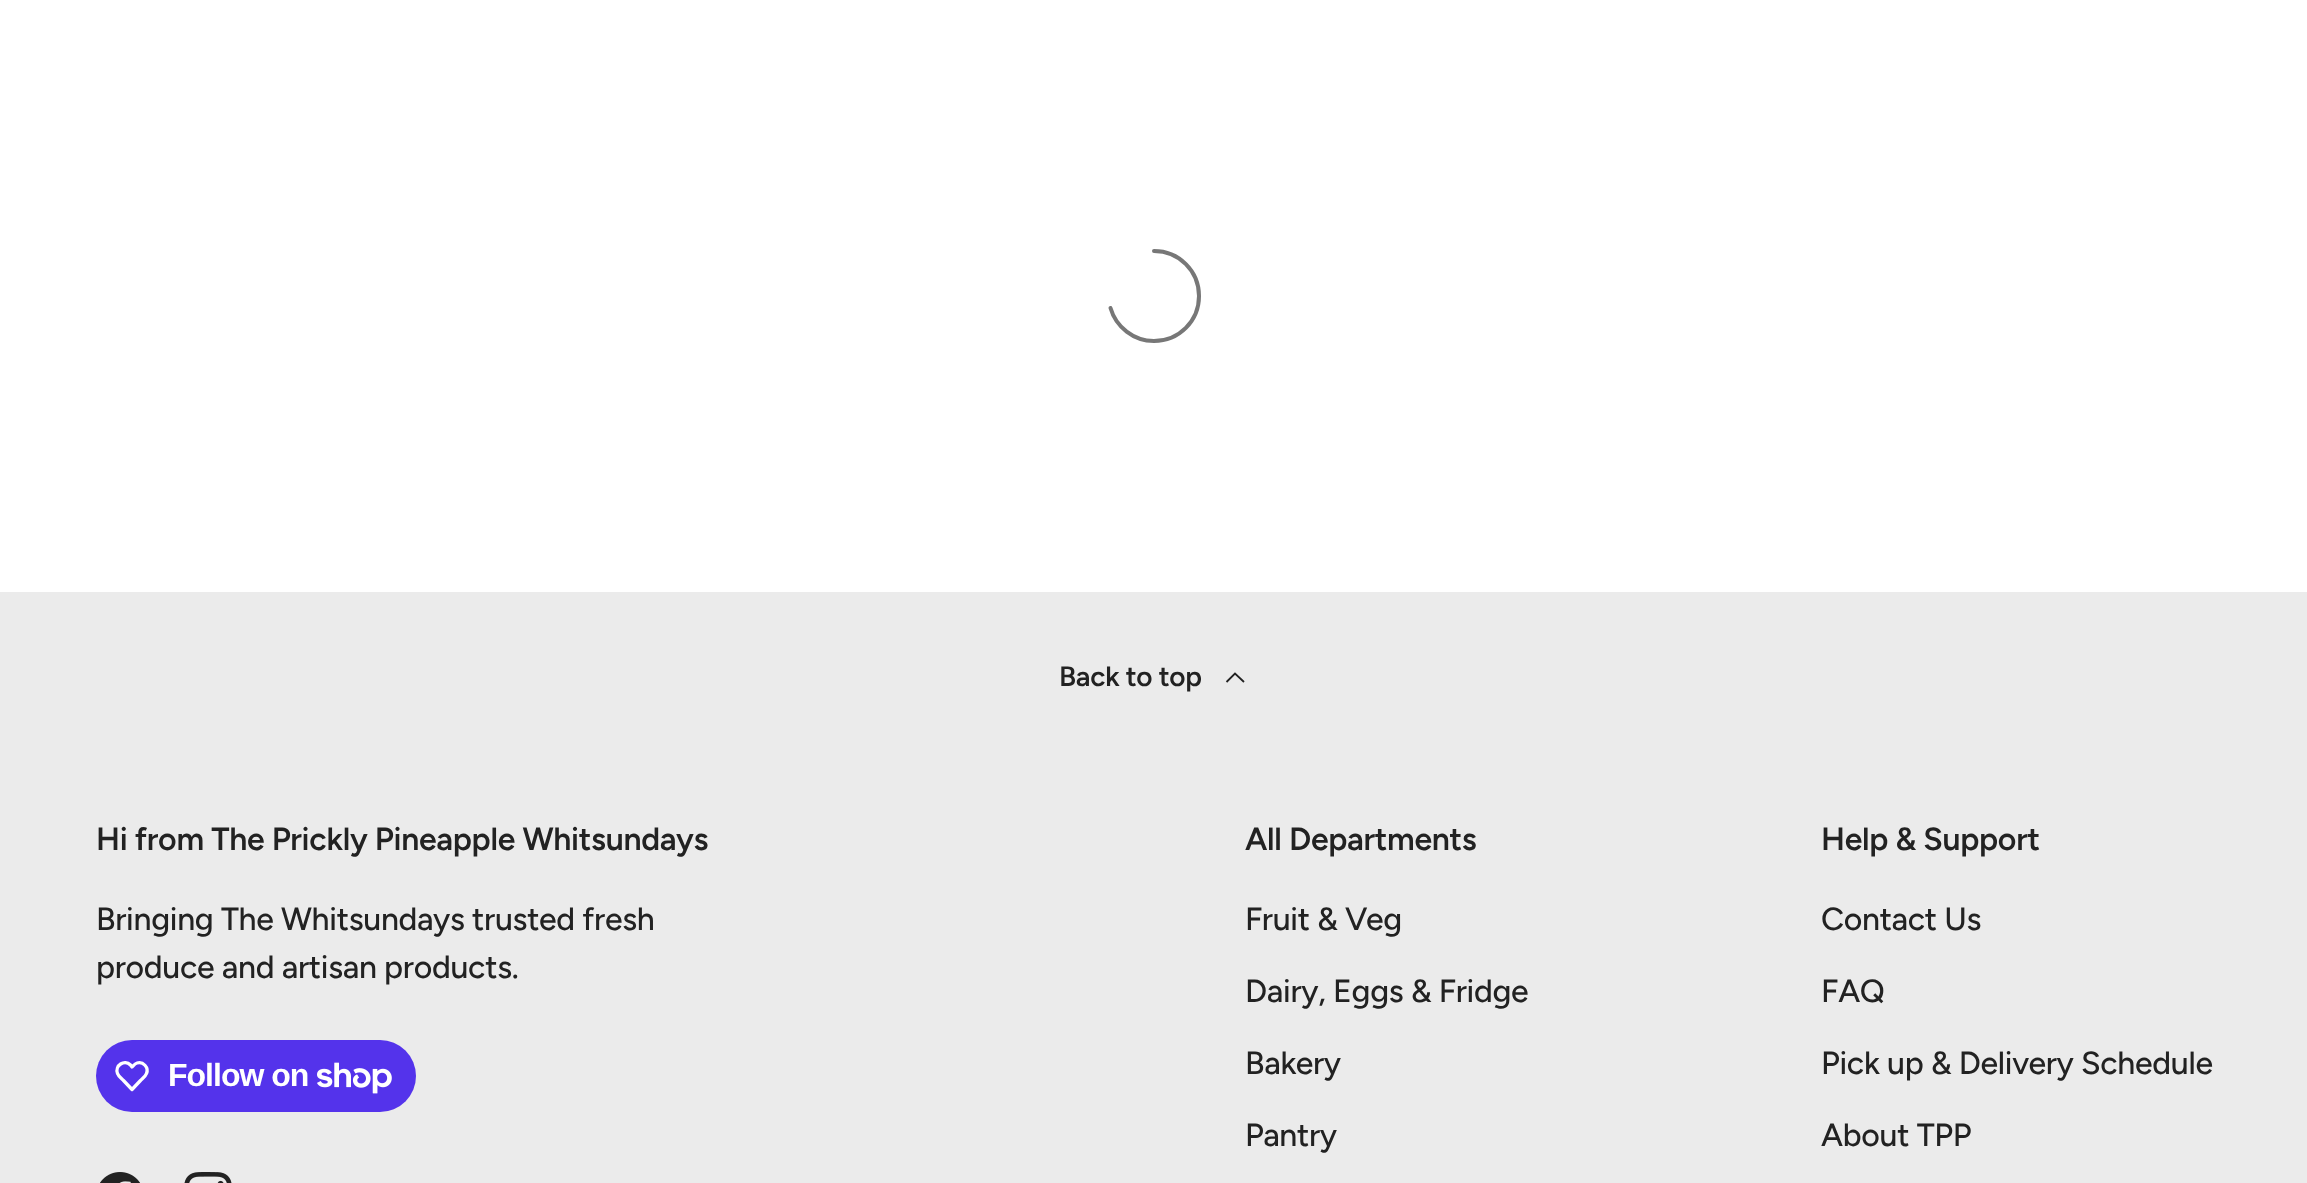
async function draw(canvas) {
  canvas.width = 2307
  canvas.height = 1183
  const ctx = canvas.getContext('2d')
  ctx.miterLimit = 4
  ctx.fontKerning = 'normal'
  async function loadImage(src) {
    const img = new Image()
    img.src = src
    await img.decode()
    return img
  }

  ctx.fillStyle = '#fff'
  ctx.fillRect(0, 0, 2307, 1183)
  ctx.beginPath()
  ctx.moveTo(1154, 251)
  ctx.bezierCurveTo(1179, 251, 1199, 271, 1199, 296)
  ctx.bezierCurveTo(1199, 321, 1179, 341, 1154, 341)
  ctx.bezierCurveTo(1133.5, 341, 1116, 327, 1110.5, 308)
  ctx.strokeStyle = '#777'
  ctx.lineWidth = 4
  ctx.lineCap = 'round'
  ctx.stroke()
  ctx.fillStyle = '#ebebeb'
  ctx.fillRect(0, 592, 2307, 591)
  ctx.letterSpacing = '-0.3px'
  ctx.font = '600 28px Figtree'
  ctx.fillStyle = '#222'
  ctx.fillText('Back to top', 1059, 686)
  ctx.beginPath()
  ctx.moveTo(1226.5, 682)
  ctx.lineTo(1235, 673.5)
  ctx.lineTo(1244, 682)
  ctx.strokeStyle = '#222'
  ctx.lineWidth = 1.8
  ctx.lineCap = 'butt'
  ctx.stroke()
  ctx.font = '600 32px Figtree'
  ctx.fillText('Hi from The Prickly Pineapple Whitsundays', 96, 850)
  ctx.font = '500 32px Figtree'
  ctx.fillText('Bringing The Whitsundays trusted fresh', 96, 930)
  ctx.fillText('produce and artisan products.', 96, 978)
  ctx.fillStyle = '#5433eb'
  ctx.beginPath()
  ctx.roundRect(96, 1040, 320, 72, 36)
  ctx.fill()
  ctx.beginPath()
  ctx.moveTo(130.5, 1065)
  ctx.lineTo(132, 1067)
  ctx.bezierCurveTo(133.5, 1065.5, 135, 1063.5, 137, 1063)
  ctx.bezierCurveTo(143, 1061, 149, 1067.5, 146.5, 1073.5)
  ctx.bezierCurveTo(145.5, 1076.5, 142.5, 1078.5, 140.5, 1080.5)
  ctx.lineTo(132, 1089.5)
  ctx.lineTo(123.5, 1080.5)
  ctx.bezierCurveTo(121.5, 1078.5, 118.5, 1076.5, 117.5, 1073.5)
  ctx.bezierCurveTo(114.5, 1065.5, 124.5, 1059, 130.5, 1065)
  ctx.closePath()
  ctx.strokeStyle = '#fff'
  ctx.lineWidth = 3.3
  ctx.lineJoin = 'round'
  ctx.stroke()
  ctx.letterSpacing = '-1px'
  ctx.font = 'bold 32px Liberation Sans'
  ctx.fillStyle = '#fff'
  ctx.fillText('Follow on', 168, 1086)
  ctx.drawImage(await loadImage('image0.png'), 317, 1062, 75, 32)
  ctx.drawImage(await loadImage('image1.png'), 100, 1172, 40, 11)
  ctx.drawImage(await loadImage('image2.png'), 184, 1172, 48, 11)
  ctx.letterSpacing = '-0.3px'
  ctx.font = '600 32px Figtree'
  ctx.fillStyle = '#222'
  ctx.fillText('All Departments', 1245, 850)
  ctx.font = '500 32px Figtree'
  ctx.fillText('Fruit & Veg', 1245, 930)
  ctx.fillText('Dairy, Eggs & Fridge', 1245, 1002)
  ctx.fillText('Bakery', 1245, 1074)
  ctx.fillText('Pantry', 1245, 1146)
  ctx.font = '600 32px Figtree'
  ctx.fillText('Help & Support', 1821, 850)
  ctx.font = '500 32px Figtree'
  ctx.fillText('Contact Us', 1821, 930)
  ctx.fillText('FAQ', 1821, 1002)
  ctx.fillText('Pick up & Delivery Schedule', 1821, 1074)
  ctx.fillText('About TPP', 1821, 1146)
}

draw(document.querySelector('canvas'))
